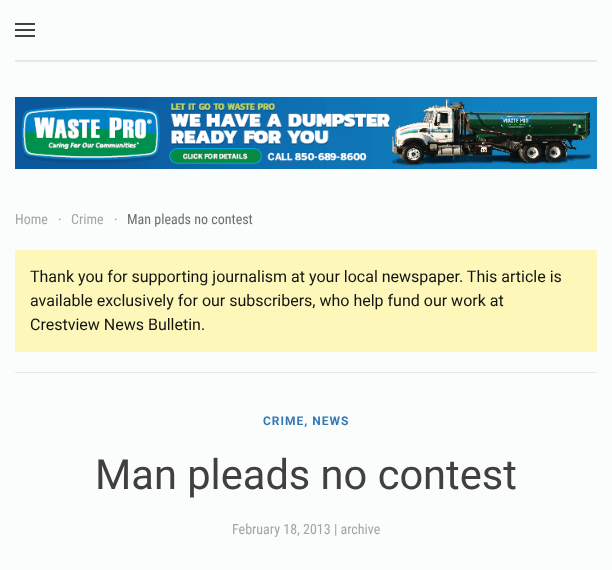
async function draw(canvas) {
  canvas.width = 612
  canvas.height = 570
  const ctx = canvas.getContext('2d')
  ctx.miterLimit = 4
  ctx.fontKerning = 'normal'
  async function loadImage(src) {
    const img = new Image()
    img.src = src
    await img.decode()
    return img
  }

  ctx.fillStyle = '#fbfcfc'
  ctx.fillRect(0, 0, 612, 570)
  ctx.fillStyle = '#e8e8e8'
  ctx.fillRect(15, 60, 582, 2)
  ctx.fillStyle = '#404041'
  ctx.fillRect(15, 23, 20, 2)
  ctx.fillRect(15, 29, 20, 2)
  ctx.fillRect(15, 35, 20, 2)
  ctx.drawImage(await loadImage('image0.png'), 15, 97, 582, 72)
  ctx.font = '14px Roboto Condensed'
  ctx.fillStyle = '#a4a4a4'
  ctx.fillText('Home', 15, 224)
  ctx.font = '14px Liberation Serif'
  ctx.fillText('∙', 58, 224)
  ctx.font = '14px Roboto Condensed'
  ctx.fillText('Crime', 71, 224)
  ctx.font = '14px Liberation Serif'
  ctx.fillText('∙', 114, 224)
  ctx.font = '14px Roboto Condensed'
  ctx.fillStyle = '#6d6e70'
  ctx.fillText('Man pleads no contest', 127, 224)
  ctx.fillStyle = '#fdf7b9'
  ctx.fillRect(15, 250, 582, 102)
  ctx.font = '16px Roboto'
  ctx.fillStyle = '#141414'
  ctx.fillText('Thank you for supporting journalism at your local newspaper. This article is', 30, 282)
  ctx.fillText('available exclusively for our subscribers, who help fund our work at', 30, 306)
  ctx.fillText('Crestview News Bulletin.', 30, 330)
  ctx.fillStyle = '#e8e8e8'
  ctx.fillRect(15, 372, 582, 1)
  ctx.letterSpacing = '1px'
  ctx.font = 'bold 12px Roboto'
  ctx.fillStyle = '#3379b7'
  ctx.fillText('CRIME, NEWS', 263, 425)
  ctx.letterSpacing = '0px'
  ctx.font = '41.6px Roboto'
  ctx.fillStyle = '#404041'
  ctx.fillText('Man pleads no contest', 95, 489)
  ctx.font = '14px Roboto Condensed'
  ctx.fillStyle = '#a4a4a4'
  ctx.fillText('February 18, 2013 | archive', 232, 534)
}

draw(document.querySelector('canvas'))
